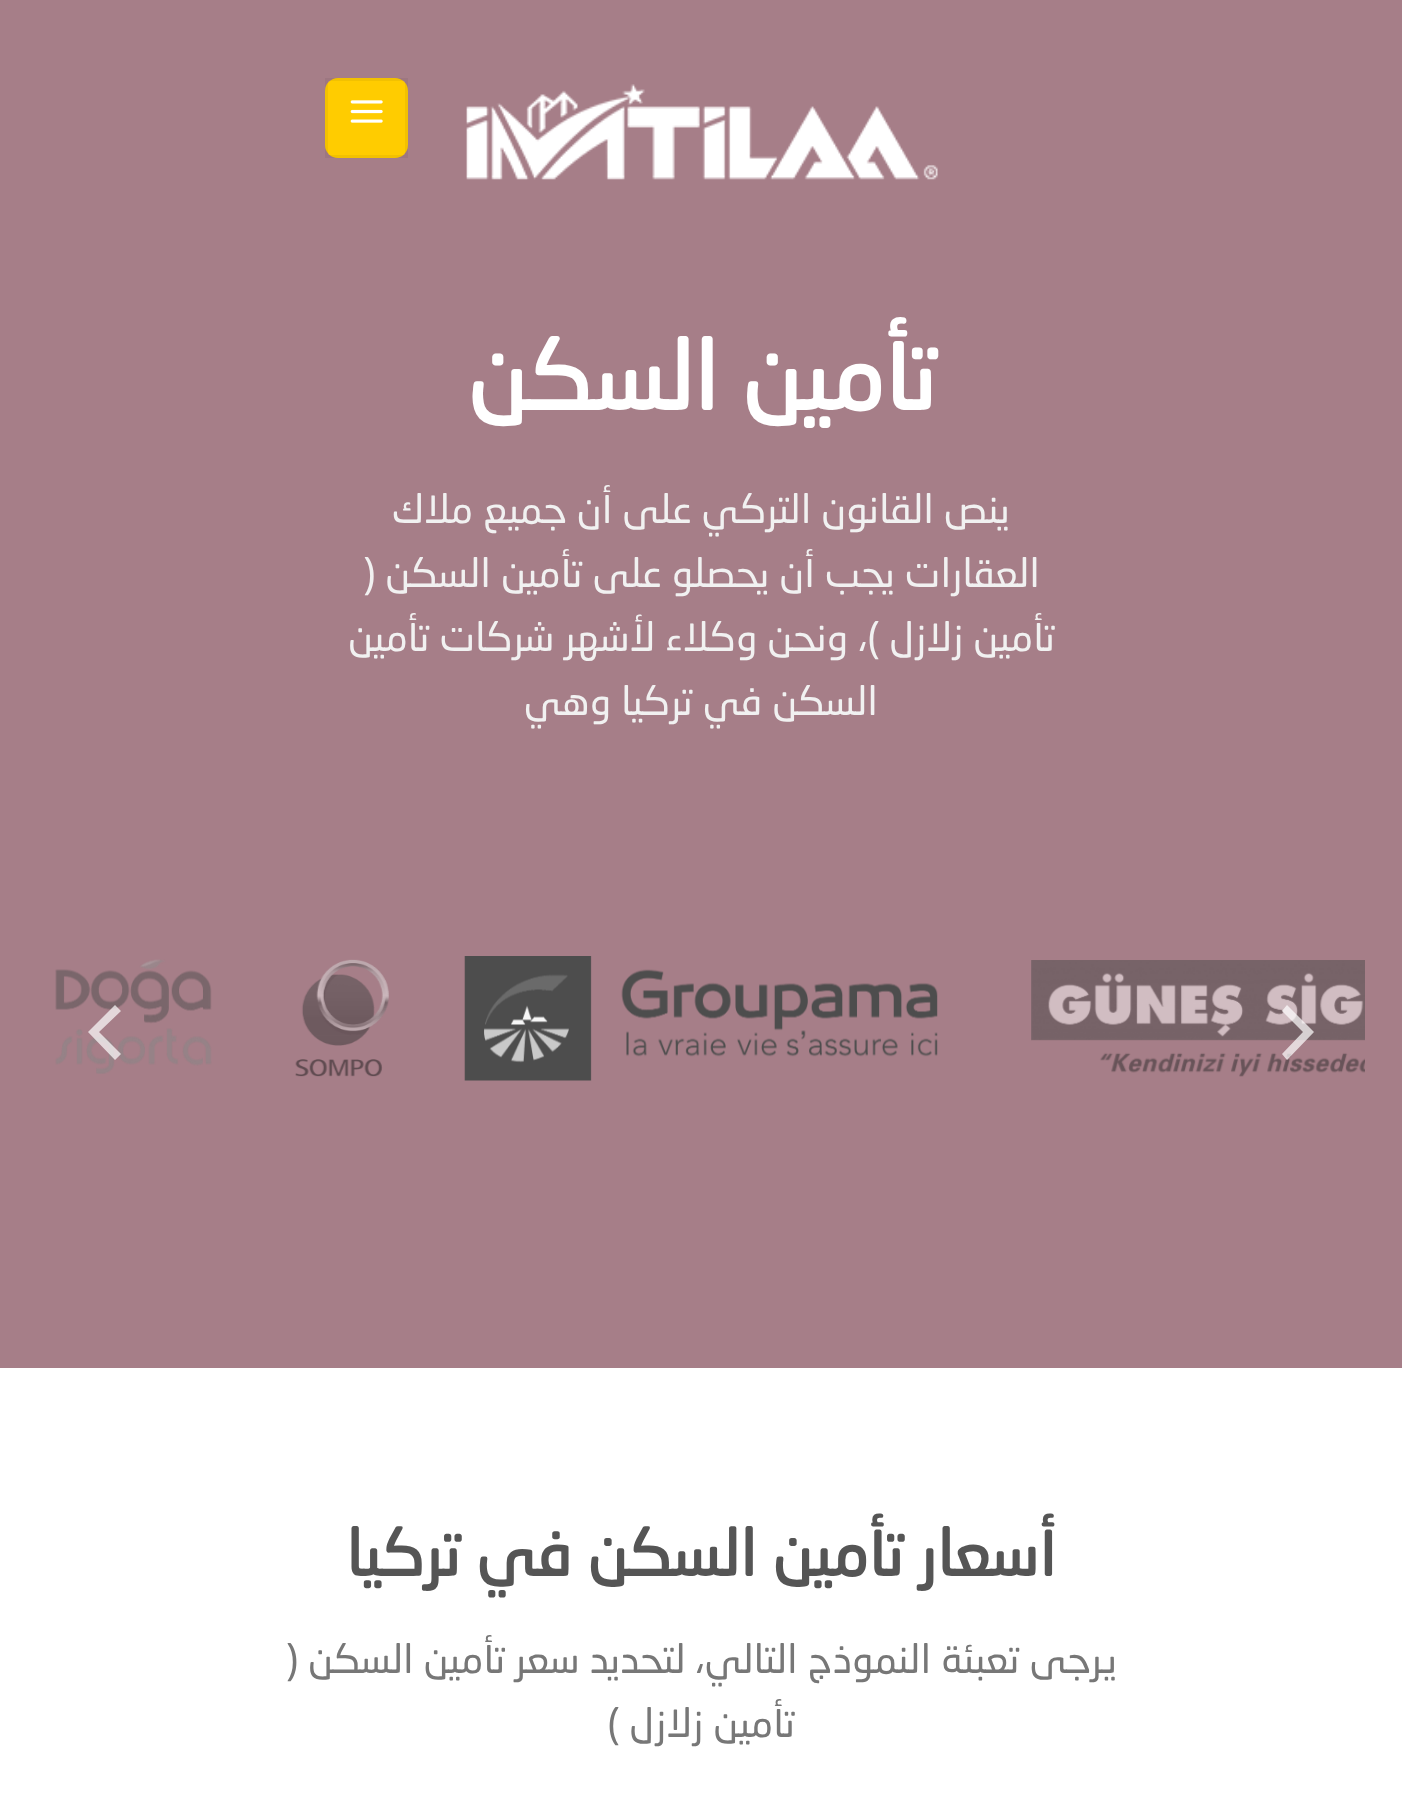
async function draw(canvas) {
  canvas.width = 1402
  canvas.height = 1801
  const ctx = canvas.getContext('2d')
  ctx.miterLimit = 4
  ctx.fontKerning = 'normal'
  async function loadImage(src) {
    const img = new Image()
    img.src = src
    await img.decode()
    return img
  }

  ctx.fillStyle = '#fff'
  ctx.fillRect(0, 0, 1402, 1801)
  ctx.fillStyle = '#a67e88'
  ctx.fillRect(0, 0, 1402, 1368)
  ctx.drawImage(await loadImage('image0.png'), 466, 84, 472, 96)
  ctx.fillStyle = '#fc0'
  ctx.beginPath()
  ctx.roundRect(325, 78, 83, 80, 13)
  ctx.fill()
  ctx.strokeStyle = '#0000000d'
  ctx.lineWidth = 3
  ctx.strokeRect(326.5, 79.5, 80, 77)
  ctx.drawImage(await loadImage('image1.png'), 350, 100, 33, 23)
  ctx.direction = 'rtl'
  ctx.font = 'bold 95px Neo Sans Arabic'
  ctx.fillStyle = '#fff'
  ctx.fillText('تأمين السكن', 936, 410)
  ctx.font = '40px Neo Sans Arabic'
  ctx.fillStyle = '#f1f1f1'
  ctx.fillText('ينص القانون التركي على أن جميع ملاك', 1010, 523)
  ctx.fillText('العقارات يجب أن يحصلو على تأمين السكن (', 1040, 587)
  ctx.fillText('تأمين زلازل )، ونحن وكلاء لأشهر شركات تأمين', 1055, 651)
  ctx.fillText('السكن في تركيا وهي', 878, 715)
  ctx.drawImage(await loadImage('image2.png'), 1031, 960, 334, 117)
  ctx.drawImage(await loadImage('image3.png'), 464, 956, 474, 125)
  ctx.drawImage(await loadImage('image4.png'), 295, 959, 94, 118)
  ctx.drawImage(await loadImage('image5.png'), 55, 959, 157, 115)
  ctx.fillStyle = '#ffffffb3'
  ctx.beginPath()
  ctx.moveTo(1314, 1032)
  ctx.lineTo(1287, 1005)
  ctx.lineTo(1282, 1011)
  ctx.lineTo(1303, 1032)
  ctx.lineTo(1282, 1054)
  ctx.lineTo(1287, 1060)
  ctx.closePath()
  ctx.fill()
  ctx.beginPath()
  ctx.moveTo(88, 1032)
  ctx.lineTo(115, 1060)
  ctx.lineTo(121, 1054)
  ctx.lineTo(99, 1032)
  ctx.lineTo(121, 1011)
  ctx.lineTo(115, 1005)
  ctx.closePath()
  ctx.fill()
  ctx.font = 'bold 64px Neo Sans Arabic'
  ctx.fillStyle = '#555'
  ctx.fillText('أسعار تأمين السكن في تركيا', 1056, 1576)
  ctx.font = '40px Neo Sans Arabic'
  ctx.fillStyle = '#777'
  ctx.fillText('يرجى تعبئة النموذج التالي، لتحديد سعر تأمين السكن (', 1117, 1673)
  ctx.fillText('تأمين زلازل )', 795, 1737)
}

draw(document.querySelector('canvas'))
